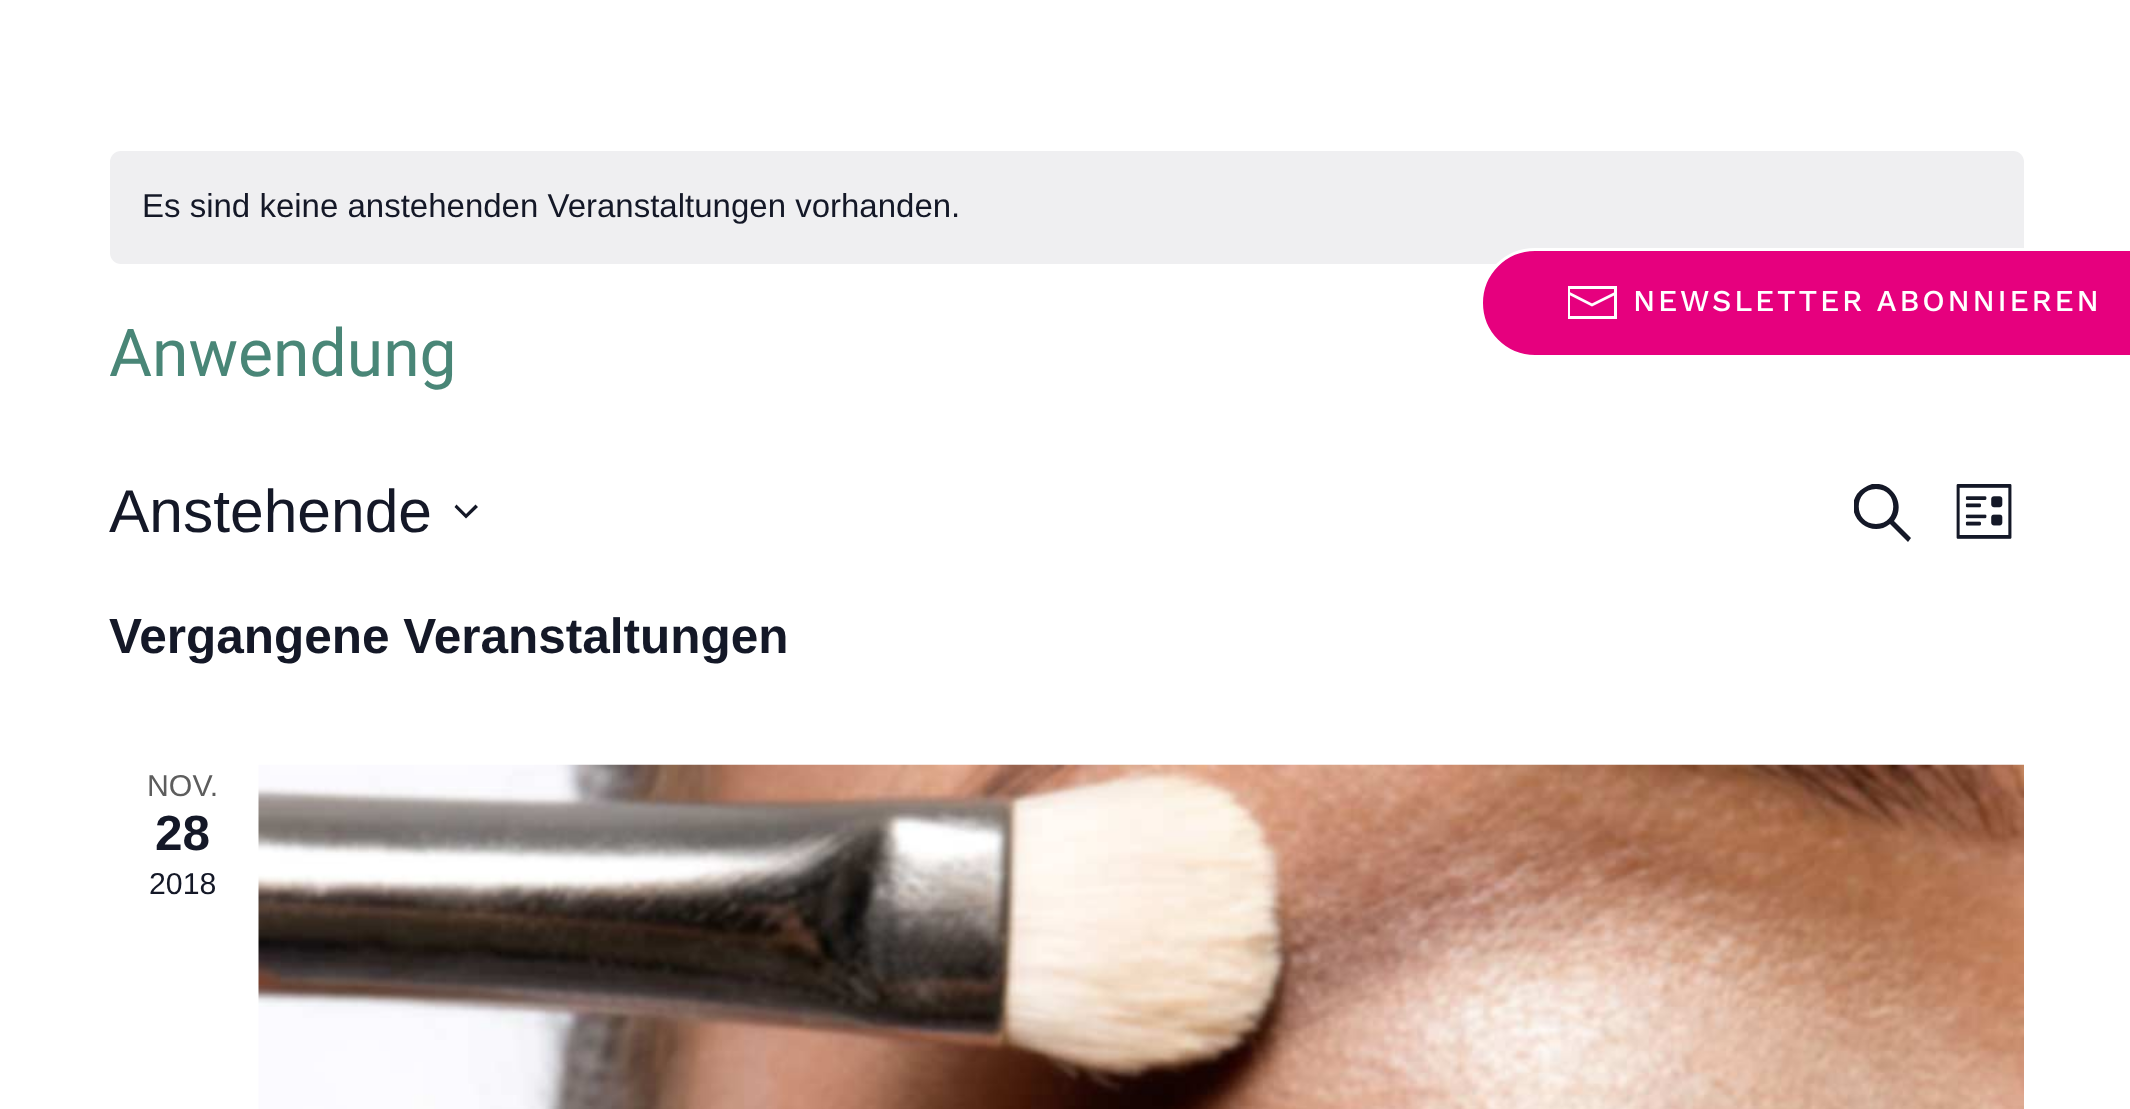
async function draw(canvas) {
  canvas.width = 2130
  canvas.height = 1109
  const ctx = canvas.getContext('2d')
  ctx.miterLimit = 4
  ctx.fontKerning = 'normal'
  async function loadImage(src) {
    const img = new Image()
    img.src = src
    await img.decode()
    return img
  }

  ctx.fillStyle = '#fff'
  ctx.fillRect(0, 0, 2130, 1109)
  ctx.fillStyle = '#efeff1'
  ctx.beginPath()
  ctx.roundRect(110, 151, 1914, 113, 11)
  ctx.fill()
  ctx.font = '33px Liberation Sans'
  ctx.fillStyle = '#141827'
  ctx.fillText('Es sind keine anstehenden Veranstaltungen vorhanden.', 142, 217)
  ctx.font = '66px Roboto'
  ctx.fillStyle = '#498677'
  ctx.fillText('Anwendung', 109, 376)
  ctx.font = '60.5px Liberation Sans'
  ctx.fillStyle = '#141827'
  ctx.fillText('Anstehende', 109, 532)
  ctx.beginPath()
  ctx.moveTo(456.5, 504.5)
  ctx.lineTo(466, 514)
  ctx.lineTo(475.5, 504.5)
  ctx.lineTo(478, 507)
  ctx.lineTo(466, 518.5)
  ctx.lineTo(454.5, 507)
  ctx.closePath()
  ctx.fill('evenodd')
  ctx.save()
  ctx.beginPath()
  ctx.rect(1854, 484, 57, 58)
  ctx.clip()
  ctx.beginPath()
  ctx.moveTo(1894, 521)
  ctx.lineTo(1911, 538)
  ctx.lineTo(1908, 542)
  ctx.lineTo(1890, 524)
  ctx.bezierCurveTo(1870, 540, 1843, 515, 1857, 494)
  ctx.bezierCurveTo(1861, 489, 1866, 486, 1872, 484)
  ctx.bezierCurveTo(1879, 483, 1887, 485, 1892, 491)
  ctx.bezierCurveTo(1900, 499, 1901, 512, 1894, 521)
  ctx.closePath()
  ctx.moveTo(1876, 489)
  ctx.bezierCurveTo(1853, 489, 1853, 524, 1876, 524)
  ctx.bezierCurveTo(1899, 524, 1899, 489, 1876, 489)
  ctx.closePath()
  ctx.fill('evenodd')
  ctx.restore()
  ctx.drawImage(await loadImage('image0.png'), 1956, 484, 56, 55)
  ctx.font = 'bold 49.5px Liberation Sans'
  ctx.fillText('Vergangene Veranstaltungen', 109, 653)
  ctx.font = '30.25px Liberation Sans'
  ctx.fillStyle = '#5d5d5d'
  ctx.fillText('NOV.', 147, 796)
  ctx.font = 'bold 49.5px Liberation Sans'
  ctx.fillStyle = '#141827'
  ctx.fillText('28', 155, 850)
  ctx.font = '30.25px Liberation Sans'
  ctx.fillText('2018', 149, 894)
  ctx.drawImage(await loadImage('image1.png'), 258, 764, 1766, 345)
  ctx.fillStyle = '#e6007e'
  ctx.beginPath()
  ctx.roundRect(1481.5, 249.5, 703, 107, 53.5)
  ctx.fill()
  ctx.strokeStyle = '#fff'
  ctx.lineWidth = 3
  ctx.stroke()
  ctx.beginPath()
  ctx.moveTo(1568.5, 293)
  ctx.lineTo(1592, 305)
  ctx.lineTo(1616, 293)
  ctx.lineWidth = 2.8
  ctx.stroke()
  ctx.fillStyle = '#fff'
  ctx.beginPath()
  ctx.moveTo(1568, 286)
  ctx.lineTo(1568, 319)
  ctx.lineTo(1617, 319)
  ctx.lineTo(1617, 286)
  ctx.closePath()
  ctx.moveTo(1614, 316)
  ctx.lineTo(1570, 316)
  ctx.lineTo(1570, 289)
  ctx.lineTo(1614, 289)
  ctx.closePath()
  ctx.fill()
  ctx.letterSpacing = '2.75px'
  ctx.font = '500 30.25px Work Sans'
  ctx.fillText('NEWSLETTER ABONNIEREN', 1633, 311)
}

draw(document.querySelector('canvas'))
